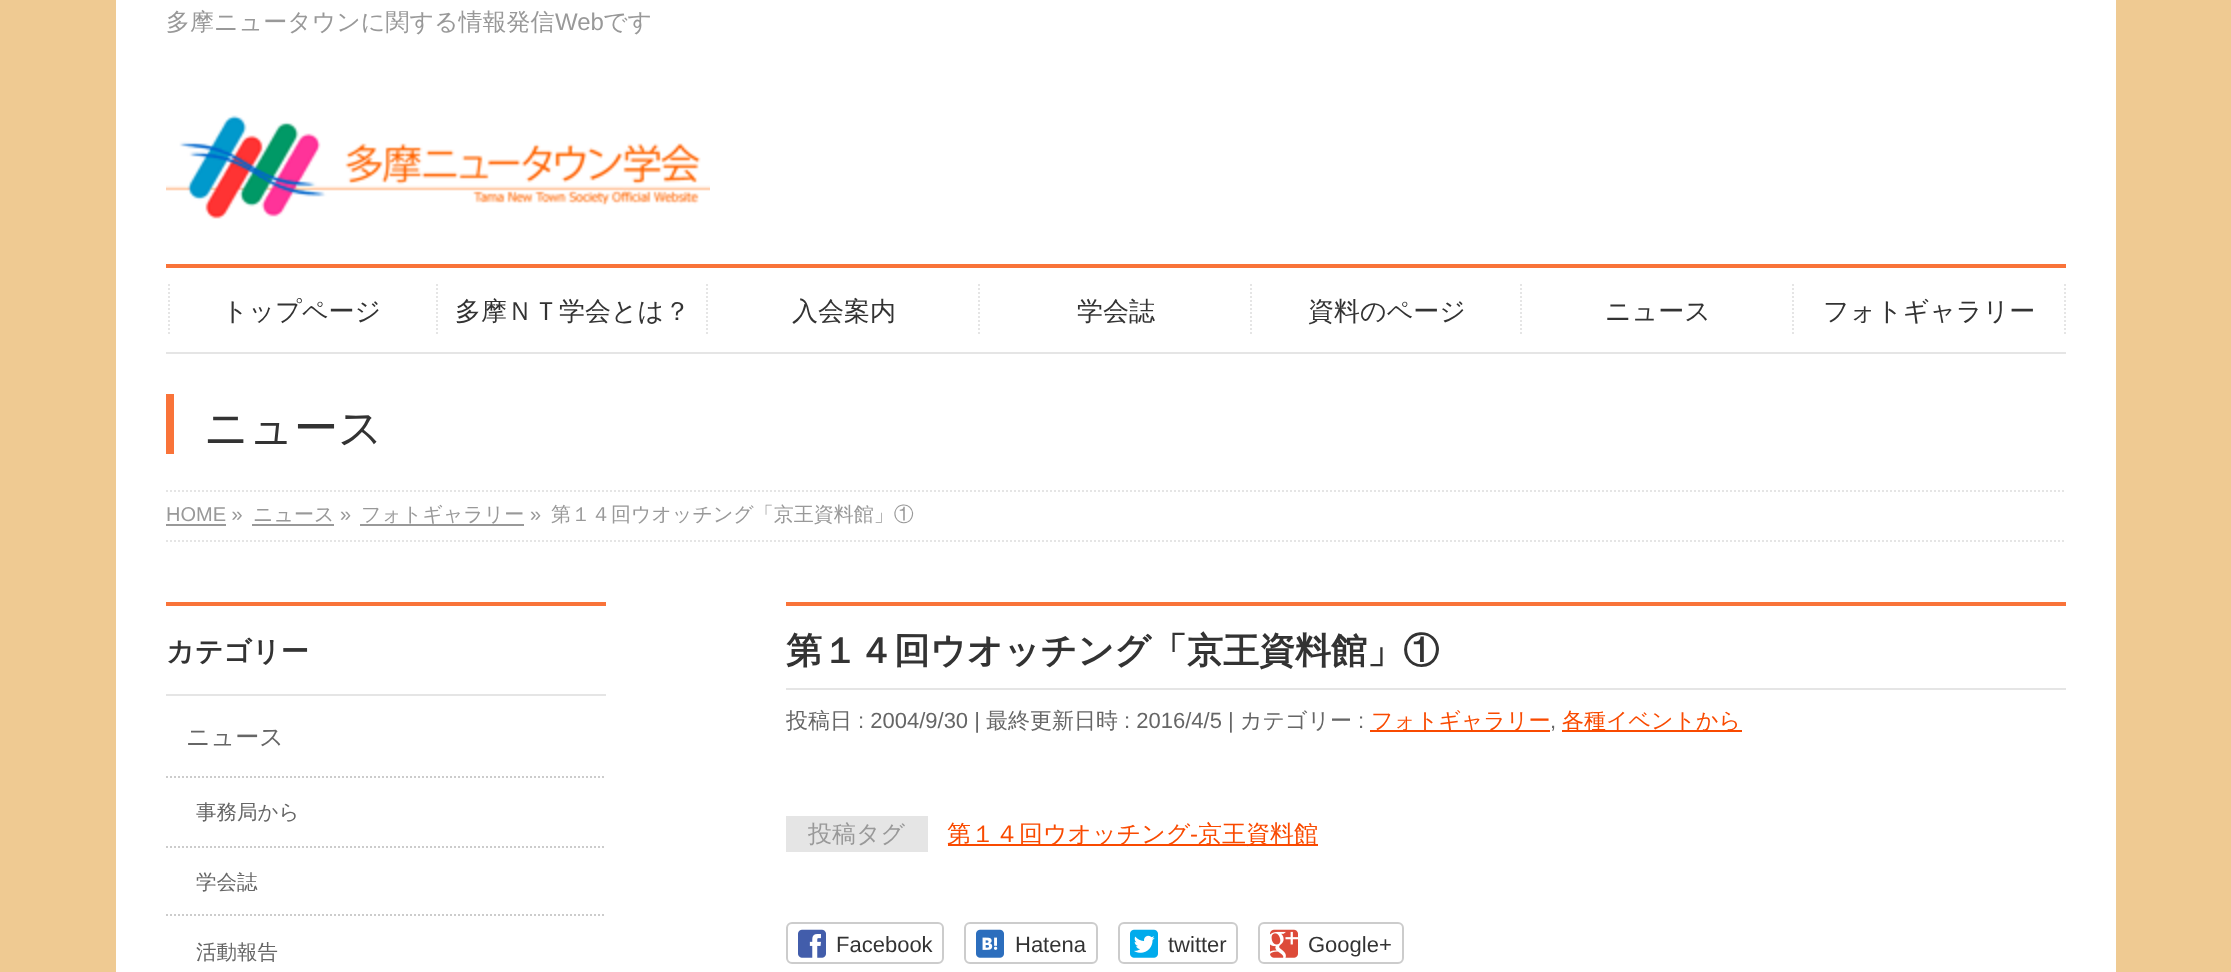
async function draw(canvas) {
  canvas.width = 2231
  canvas.height = 972
  const ctx = canvas.getContext('2d')
  ctx.miterLimit = 4
  ctx.fontKerning = 'normal'
  async function loadImage(src) {
    const img = new Image()
    img.src = src
    await img.decode()
    return img
  }

  ctx.fillStyle = '#efca92'
  ctx.fillRect(0, 0, 2231, 972)
  ctx.fillStyle = '#fff'
  ctx.fillRect(116, 0, 2000, 354)
  ctx.font = '500 24px WenQuanYi Zen Hei'
  ctx.fillStyle = '#999'
  ctx.fillText('多摩ニュータウンに関する情報発信', 166, 30)
  ctx.font = '24px Liberation Sans'
  ctx.fillText('Web', 555, 30)
  ctx.font = '500 24px WenQuanYi Zen Hei'
  ctx.fillText('です', 603, 30)
  ctx.drawImage(await loadImage('image0.png'), 166, 115, 544, 104)
  ctx.fillStyle = '#f97339'
  ctx.fillRect(166, 264, 1900, 4)
  ctx.fillStyle = '#e5e5e5'
  ctx.fillRect(166, 352, 1900, 2)
  ctx.beginPath()
  ctx.moveTo(169, 284)
  ctx.lineTo(169, 336)
  ctx.strokeStyle = '#e5e5e5'
  ctx.lineWidth = 2
  ctx.setLineDash([2, 2])
  ctx.stroke()
  ctx.font = '500 26px WenQuanYi Zen Hei'
  ctx.fillStyle = '#333'
  ctx.fillText('トップページ', 222, 320)
  ctx.beginPath()
  ctx.moveTo(437, 284)
  ctx.lineTo(437, 336)
  ctx.stroke()
  ctx.fillText('多摩ＮＴ学会とは？', 455, 320)
  ctx.beginPath()
  ctx.moveTo(707, 284)
  ctx.lineTo(707, 336)
  ctx.stroke()
  ctx.fillText('入会案内', 792, 320)
  ctx.beginPath()
  ctx.moveTo(979, 284)
  ctx.lineTo(979, 336)
  ctx.stroke()
  ctx.fillText('学会誌', 1077, 320)
  ctx.beginPath()
  ctx.moveTo(1251, 284)
  ctx.lineTo(1251, 336)
  ctx.stroke()
  ctx.fillText('資料のページ', 1308, 320)
  ctx.beginPath()
  ctx.moveTo(1521, 284)
  ctx.lineTo(1521, 336)
  ctx.stroke()
  ctx.fillText('ニュース', 1605, 320)
  ctx.beginPath()
  ctx.moveTo(1793, 284)
  ctx.lineTo(1793, 336)
  ctx.stroke()
  ctx.fillText('フォトギャラリー', 1823, 320)
  ctx.beginPath()
  ctx.moveTo(2065, 284)
  ctx.lineTo(2065, 336)
  ctx.stroke()
  ctx.fillStyle = '#fff'
  ctx.fillRect(116, 354, 2000, 136)
  ctx.fillStyle = '#f97339'
  ctx.fillRect(166, 394, 8, 60)
  ctx.font = '500 44px WenQuanYi Zen Hei'
  ctx.fillStyle = '#333'
  ctx.fillText('ニュース', 204, 443)
  ctx.fillStyle = '#fff'
  ctx.fillRect(116, 490, 2000, 482)
  ctx.beginPath()
  ctx.moveTo(166, 491)
  ctx.lineTo(2066, 491)
  ctx.stroke()
  ctx.beginPath()
  ctx.moveTo(166, 541)
  ctx.lineTo(2066, 541)
  ctx.stroke()
  ctx.font = '20px Liberation Sans'
  ctx.fillStyle = '#999'
  ctx.fillText('HOME »', 166, 521)
  ctx.fillRect(166, 524, 60, 2)
  ctx.font = '500 20px WenQuanYi Zen Hei'
  ctx.fillText('ニュース', 253, 521)
  ctx.fillRect(252, 524, 82, 2)
  ctx.font = '20px Liberation Sans'
  ctx.fillText('»', 340, 521)
  ctx.font = '500 20px WenQuanYi Zen Hei'
  ctx.fillText('フォトギャラリー', 361, 521)
  ctx.fillRect(360, 524, 164, 2)
  ctx.font = '20px Liberation Sans'
  ctx.fillText('»', 530, 521)
  ctx.font = '500 20px WenQuanYi Zen Hei'
  ctx.fillText('第１４回ウオッチング「京王資料館」①', 551, 521)
  ctx.fillStyle = '#f97339'
  ctx.fillRect(166, 602, 440, 4)
  ctx.fillStyle = '#e5e5e5'
  ctx.fillRect(166, 694, 440, 2)
  ctx.font = 'bold 28px WenQuanYi Zen Hei'
  ctx.fillStyle = '#333'
  ctx.fillText('カテゴリー', 166, 661)
  ctx.font = '500 24px WenQuanYi Zen Hei'
  ctx.fillStyle = '#666'
  ctx.fillText('ニュース', 186, 745)
  ctx.beginPath()
  ctx.moveTo(166, 777)
  ctx.lineTo(606, 777)
  ctx.strokeStyle = '#ccc'
  ctx.stroke()
  ctx.font = '500 20.5px WenQuanYi Zen Hei'
  ctx.fillText('事務局から', 196, 819)
  ctx.beginPath()
  ctx.moveTo(166, 847)
  ctx.lineTo(606, 847)
  ctx.stroke()
  ctx.fillText('学会誌', 196, 889)
  ctx.beginPath()
  ctx.moveTo(166, 915)
  ctx.lineTo(606, 915)
  ctx.stroke()
  ctx.fillText('活動報告', 196, 959)
  ctx.fillStyle = '#f97339'
  ctx.fillRect(786, 602, 1280, 4)
  ctx.fillStyle = '#e5e5e5'
  ctx.fillRect(786, 688, 1280, 2)
  ctx.font = 'bold 36px WenQuanYi Zen Hei'
  ctx.fillStyle = '#333'
  ctx.fillText('第１４回ウオッチング「京王資料館」①', 786, 663)
  ctx.font = '500 22px WenQuanYi Zen Hei'
  ctx.fillStyle = '#666'
  ctx.fillText('投稿日', 786, 728)
  ctx.font = '22px Liberation Sans'
  ctx.fillText(': 2004/9/30 |', 858, 728)
  ctx.font = '500 22px WenQuanYi Zen Hei'
  ctx.fillText('最終更新日時', 986, 728)
  ctx.font = '22px Liberation Sans'
  ctx.fillText(': 2016/4/5 |', 1124, 728)
  ctx.font = '500 22px WenQuanYi Zen Hei'
  ctx.fillText('カテゴリー', 1240, 728)
  ctx.font = '22px Liberation Sans'
  ctx.fillText(':', 1358, 728)
  ctx.fillStyle = '#f94a00'
  ctx.fillRect(1370, 730, 180, 2)
  ctx.font = '500 22px WenQuanYi Zen Hei'
  ctx.fillText('フォトギャラリー', 1371, 728)
  ctx.font = '22px Liberation Sans'
  ctx.fillStyle = '#666'
  ctx.fillText(',', 1550, 728)
  ctx.fillStyle = '#f94a00'
  ctx.fillRect(1562, 730, 180, 2)
  ctx.font = '500 22px WenQuanYi Zen Hei'
  ctx.fillText('各種イベントから', 1562, 728)
  ctx.fillStyle = '#e5e5e5'
  ctx.fillRect(786, 816, 142, 36)
  ctx.font = '500 24px WenQuanYi Zen Hei'
  ctx.fillStyle = '#999'
  ctx.fillText('投稿タグ', 808, 842)
  ctx.fillStyle = '#f94a00'
  ctx.fillRect(948, 844, 370, 2)
  ctx.fillText('第１４回ウオッチング', 947, 842)
  ctx.font = '24px Liberation Sans'
  ctx.fillText('-', 1190, 842)
  ctx.font = '500 24px WenQuanYi Zen Hei'
  ctx.fillText('京王資料館', 1198, 842)
  ctx.beginPath()
  ctx.roundRect(787, 923, 156, 40, 5)
  ctx.setLineDash([])
  ctx.stroke()
  ctx.drawImage(await loadImage('image1.png'), 798, 929, 28, 29)
  ctx.font = '22px Liberation Sans'
  ctx.fillStyle = '#333'
  ctx.fillText('Facebook', 836, 952)
  ctx.beginPath()
  ctx.roundRect(965, 923, 132, 40, 5)
  ctx.stroke()
  ctx.drawImage(await loadImage('image2.png'), 976, 929, 28, 29)
  ctx.fillText('Hatena', 1015, 952)
  ctx.beginPath()
  ctx.roundRect(1119, 923, 118, 40, 5)
  ctx.stroke()
  ctx.drawImage(await loadImage('image3.png'), 1130, 929, 28, 29)
  ctx.fillText('twitter', 1168, 952)
  ctx.beginPath()
  ctx.roundRect(1259, 923, 144, 40, 5)
  ctx.stroke()
  ctx.drawImage(await loadImage('image4.png'), 1270, 929, 28, 29)
  ctx.fillText('Google+', 1308, 952)
}

draw(document.querySelector('canvas'))
